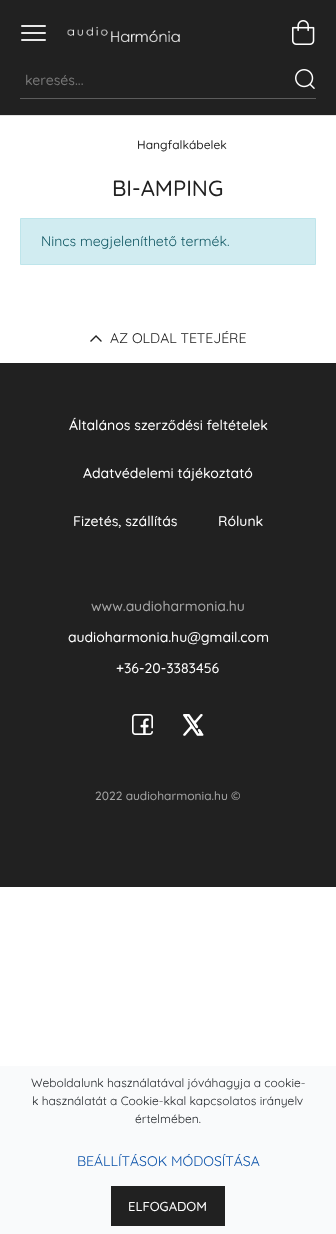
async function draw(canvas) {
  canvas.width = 336
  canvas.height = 1234
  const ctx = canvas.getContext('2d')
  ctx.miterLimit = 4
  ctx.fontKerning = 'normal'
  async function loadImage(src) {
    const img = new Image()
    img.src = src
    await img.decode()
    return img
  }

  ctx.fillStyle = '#fff'
  ctx.fillRect(0, 0, 336, 1234)
  ctx.fillStyle = '#212121'
  ctx.fillRect(0, 0, 336, 115)
  ctx.fillStyle = '#e9e9e9'
  ctx.beginPath()
  ctx.roundRect(21, 25, 25, 2, 1)
  ctx.fill()
  ctx.beginPath()
  ctx.roundRect(21, 32, 25, 2, 1)
  ctx.fill()
  ctx.beginPath()
  ctx.roundRect(21, 39, 25, 2, 1)
  ctx.fill()
  ctx.drawImage(await loadImage('image0.png'), 67, 26, 113, 17)
  ctx.drawImage(await loadImage('image1.png'), 292, 20, 23, 25)
  ctx.fillStyle = '#5c5c5c'
  ctx.fillRect(20, 98, 296, 1)
  ctx.font = '500 14px Quicksand'
  ctx.fillStyle = '#767676'
  ctx.fillText('keresés...', 25, 85)
  ctx.drawImage(await loadImage('image2.png'), 295, 69, 20, 20)
  ctx.fillStyle = '#e3e3e3'
  ctx.fillRect(0, 115, 336, 1)
  ctx.font = '500 12px Quicksand'
  ctx.fillStyle = '#212121'
  ctx.fillText('Hangfalkábelek', 137, 149)
  ctx.font = '500 22px Quicksand'
  ctx.fillText('BI-AMPING', 112, 196)
  ctx.fillStyle = '#d1ecf1'
  ctx.beginPath()
  ctx.rect(20.5, 218.5, 295, 46)
  ctx.fill()
  ctx.strokeStyle = '#bee5eb'
  ctx.stroke()
  ctx.font = '14px Quicksand'
  ctx.fillStyle = '#0c5460'
  ctx.fillText('Nincs megjeleníthető termék.', 41, 246)
  ctx.drawImage(await loadImage('image3.png'), 90, 335, 12, 7)
  ctx.fillStyle = '#212121'
  ctx.fillText('AZ OLDAL TETEJÉRE', 110, 343)
  ctx.fillRect(0, 363, 336, 524)
  ctx.font = '500 14px Quicksand'
  ctx.fillStyle = '#fff'
  ctx.fillText('Általános szerződési feltételek', 69, 430)
  ctx.fillText('Adatvédelemi tájékoztató', 83, 478)
  ctx.fillText('Fizetés, szállítás', 73, 526)
  ctx.fillText('Rólunk', 218, 526)
  ctx.fillStyle = '#a6a6a6'
  ctx.fillText('www.audioharmonia.hu', 91, 611)
  ctx.fillStyle = '#fff'
  ctx.fillText('audioharmonia.hu@gmail.com', 68, 642)
  ctx.fillText('+36-20-3383456', 116, 673)
  ctx.drawImage(await loadImage('image4.png'), 132, 714, 21, 21)
  ctx.drawImage(await loadImage('image5.png'), 183, 714, 21, 22)
  ctx.font = '500 12px Quicksand'
  ctx.fillStyle = '#a6a6a6'
  ctx.fillText('2022 audioharmonia.hu ©', 95, 800)
  ctx.fillStyle = '#f9fafb'
  ctx.fillRect(0, 1066, 336, 168)
  ctx.font = '12px Quicksand'
  ctx.fillStyle = '#212529'
  ctx.fillText('Weboldalunk használatával jóváhagyja a cookie-', 31, 1087)
  ctx.fillText('k használatát a Cookie-kkal kapcsolatos irányelv', 32, 1105)
  ctx.fillText('értelmében.', 135, 1123)
  ctx.font = '14px Quicksand'
  ctx.fillStyle = '#0f55ab'
  ctx.fillText('BEÁLLÍTÁSOK MÓDOSÍTÁSA', 77, 1166)
  ctx.fillStyle = '#212121'
  ctx.fillRect(111, 1186, 114, 40)
  ctx.font = '500 13px Quicksand'
  ctx.fillStyle = '#fff'
  ctx.fillText('ELFOGADOM', 128, 1211)
}

draw(document.querySelector('canvas'))
